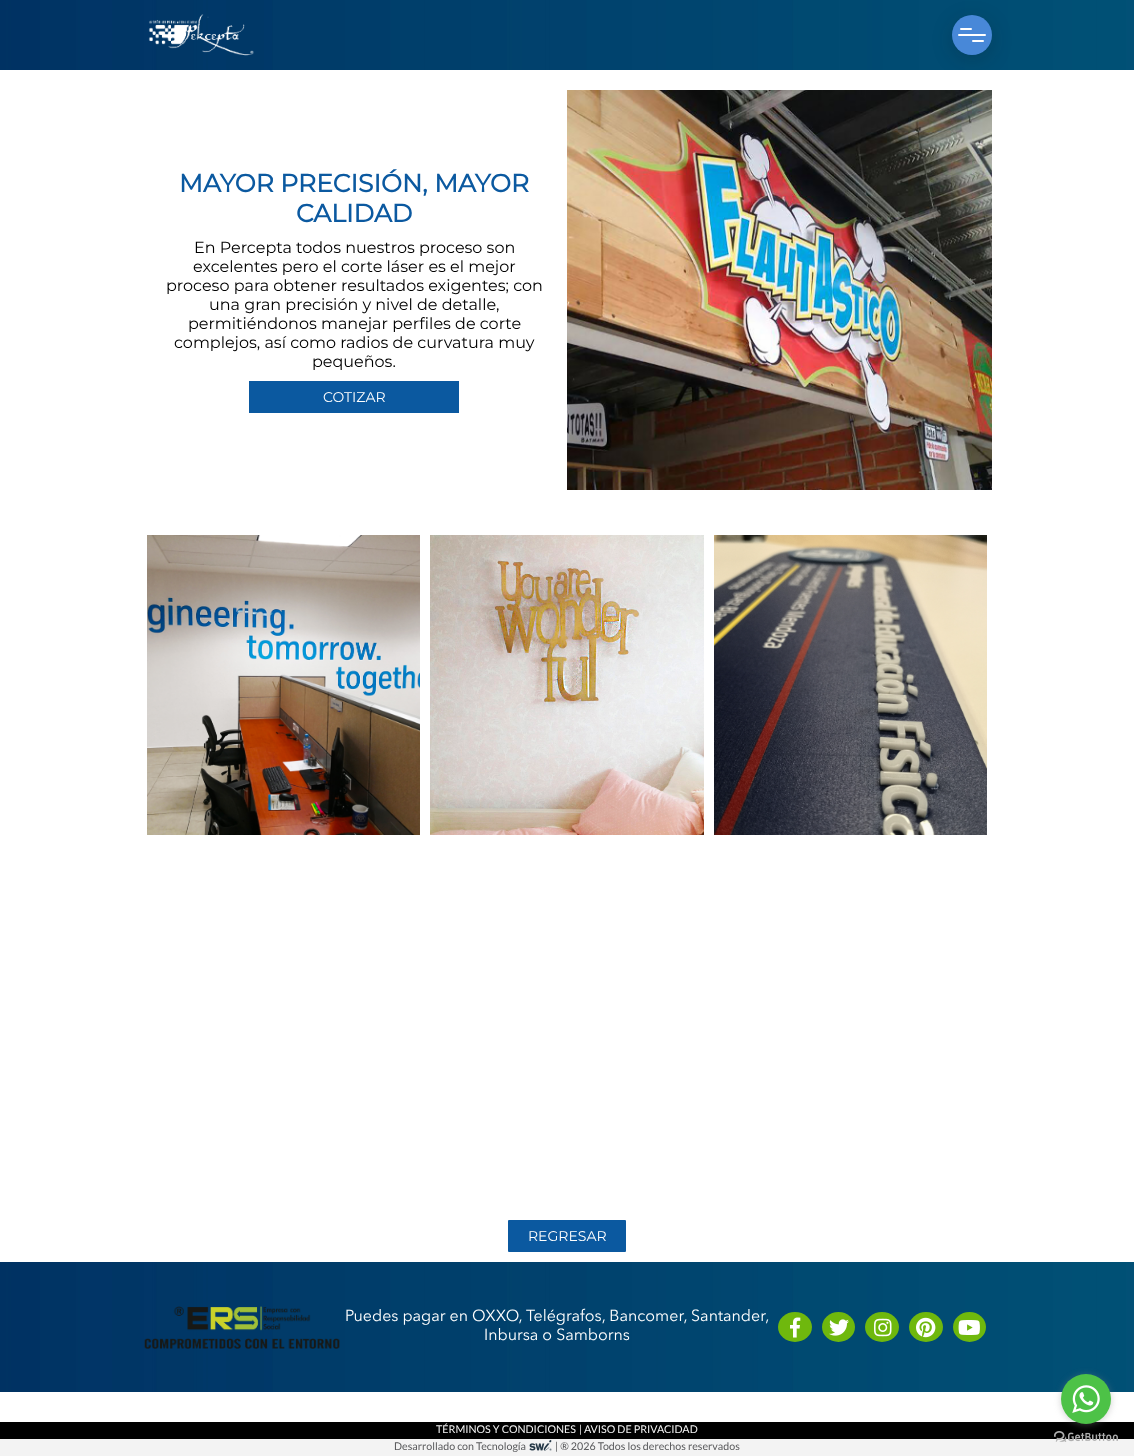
async function draw(canvas) {
  canvas.width = 1134
  canvas.height = 1456
  const ctx = canvas.getContext('2d')
  ctx.miterLimit = 4
  ctx.fontKerning = 'normal'
  async function loadImage(src) {
    const img = new Image()
    img.src = src
    await img.decode()
    return img
  }

  ctx.fillStyle = '#fff'
  ctx.fillRect(0, 0, 1134, 1456)
  ctx.drawImage(await loadImage('image0.png'), 0, 0, 1134, 70)
  ctx.drawImage(await loadImage('image1.png'), 148, 14, 106, 42)
  ctx.drawImage(await loadImage('image2.png'), 567, 90, 425, 400)
  ctx.save()
  ctx.beginPath()
  ctx.rect(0, 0, 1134, 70)
  ctx.clip()
  ctx.fillStyle = '#12161833'
  ctx.filter = 'blur(10px)'
  ctx.beginPath()
  ctx.roundRect(952, 20, 40, 40, 20)
  ctx.fill()
  ctx.filter = 'none'
  ctx.restore()
  ctx.fillStyle = '#4888d8'
  ctx.beginPath()
  ctx.arc(972, 35, 20, 0, 2 * Math.PI)
  ctx.fill()
  ctx.fillStyle = '#fff'
  ctx.beginPath()
  ctx.roundRect(960, 28, 12, 2, 1)
  ctx.fill()
  ctx.beginPath()
  ctx.roundRect(958, 34, 28, 2, 1)
  ctx.fill()
  ctx.beginPath()
  ctx.roundRect(972, 40, 12, 2, 1)
  ctx.fill()
  ctx.font = 'bold 25px Montserrat'
  ctx.fillStyle = '#0b59a0'
  ctx.fillText('MAYOR PRECISIÓN, MAYOR', 179, 192)
  ctx.fillText('CALIDAD', 296, 222)
  ctx.font = '100 16px Montserrat'
  ctx.fillStyle = '#000'
  ctx.fillText('En Percepta todos nuestros proceso son', 194, 253)
  ctx.fillText('excelentes pero el corte láser es el mejor', 193, 272)
  ctx.fillText('proceso para obtener resultados exigentes; con', 166, 291)
  ctx.fillText('una gran precisión y nivel de detalle,', 209, 310)
  ctx.fillText('permitiéndonos manejar perfiles de corte', 188, 329)
  ctx.fillText('complejos, así como radios de curvatura muy', 174, 348)
  ctx.fillText('pequeños.', 312, 367)
  ctx.fillStyle = '#0b59a0'
  ctx.fillRect(249, 381, 210, 32)
  ctx.font = '100 14px Montserrat'
  ctx.fillStyle = '#fff'
  ctx.fillText('COTIZAR', 323, 402)
  ctx.drawImage(await loadImage('image3.png'), 147, 535, 273, 300)
  ctx.font = '12px Lato'
  ctx.fillStyle = '#957552'
  ctx.fillText('V', 272, 690)
  ctx.drawImage(await loadImage('image4.png'), 430, 535, 274, 300)
  ctx.drawImage(await loadImage('image5.png'), 714, 535, 273, 300)
  ctx.fillStyle = '#0b59a0'
  ctx.beginPath()
  ctx.roundRect(508, 1220, 118, 32, 1)
  ctx.fill()
  ctx.font = '100 14px Montserrat'
  ctx.fillStyle = '#fff'
  ctx.fillText('REGRESAR', 528, 1241)
  ctx.drawImage(await loadImage('image6.png'), 0, 1262, 1134, 130)
  ctx.drawImage(await loadImage('image7.png'), 144, 1306, 196, 43)
  ctx.font = '16px Avenir Next'
  ctx.fillText('Puedes pagar en OXXO, Telégrafos, Bancomer, Santander,', 345, 1321)
  ctx.fillText('Inbursa o Samborns', 484, 1340)
  ctx.fillStyle = '#6fb80d'
  ctx.beginPath()
  ctx.ellipse(795, 1327, 17, 15, 0, 0, 2 * Math.PI)
  ctx.fill()
  ctx.drawImage(await loadImage('image8.png'), 790, 1317, 11, 21)
  ctx.beginPath()
  ctx.ellipse(838.5, 1327, 16.5, 15, 0, 0, 2 * Math.PI)
  ctx.fill()
  ctx.drawImage(await loadImage('image9.png'), 829, 1319, 20, 17)
  ctx.beginPath()
  ctx.ellipse(882, 1327, 17, 15, 0, 0, 2 * Math.PI)
  ctx.fill()
  ctx.drawImage(await loadImage('image10.png'), 874, 1318, 18, 19)
  ctx.beginPath()
  ctx.ellipse(926, 1327, 17, 15, 0, 0, 2 * Math.PI)
  ctx.fill()
  ctx.drawImage(await loadImage('image11.png'), 916, 1317, 20, 21)
  ctx.beginPath()
  ctx.ellipse(969.5, 1327, 16.5, 15, 0, 0, 2 * Math.PI)
  ctx.fill()
  ctx.drawImage(await loadImage('image12.png'), 958, 1320, 22, 15)
  ctx.fillStyle = '#000'
  ctx.fillRect(0, 1422, 1134, 17)
  ctx.font = '10.7px Lato'
  ctx.fillStyle = '#f3f3f3'
  ctx.fillText('TÉRMINOS Y CONDICIONES', 436, 1433)
  ctx.fillText('|', 579, 1433)
  ctx.fillText('AVISO DE PRIVACIDAD', 584, 1433)
  ctx.fillRect(0, 1439, 1134, 17)
  ctx.drawImage(await loadImage('image14.png'), 1054, 1431, 64, 11)
  ctx.fillStyle = '#88888866'
  ctx.filter = 'blur(3.5px)'
  ctx.beginPath()
  ctx.roundRect(1061, 1375, 50, 50, 25)
  ctx.fill()
  ctx.filter = 'none'
  ctx.fillStyle = '#4dc247'
  ctx.beginPath()
  ctx.arc(1086, 1399, 25, 0, 2 * Math.PI)
  ctx.fill()
  ctx.drawImage(await loadImage('image13.png'), 1072, 1385, 28, 28)
  ctx.fillStyle = '#58595b'
  ctx.fillText('Desarrollado con Tecnología', 394, 1450)
  ctx.drawImage(await loadImage('image15.png'), 529, 1440, 23, 11)
  ctx.fillText('| ® 2026 Todos los derechos reservados', 555, 1450)
}

draw(document.querySelector('canvas'))
